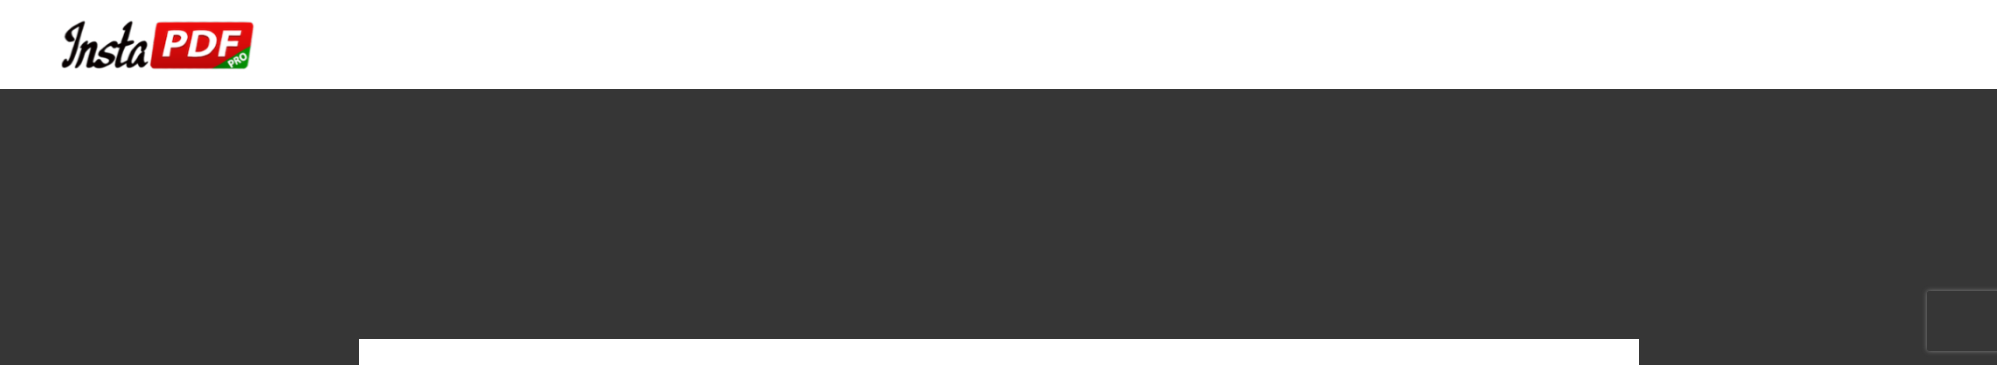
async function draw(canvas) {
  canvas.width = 1997
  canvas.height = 365
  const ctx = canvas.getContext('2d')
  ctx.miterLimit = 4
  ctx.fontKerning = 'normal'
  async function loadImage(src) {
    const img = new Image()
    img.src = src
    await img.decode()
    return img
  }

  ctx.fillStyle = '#363636'
  ctx.fillRect(0, 0, 1997, 365)
  ctx.fillStyle = '#fff'
  ctx.fillRect(0, 0, 1997, 89)
  ctx.drawImage(await loadImage('image0.png'), 61, 20, 194, 50)
  ctx.fillRect(359, 339, 1280, 26)
  ctx.save()
  ctx.beginPath()
  ctx.moveTo(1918, 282)
  ctx.lineTo(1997, 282)
  ctx.lineTo(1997, 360)
  ctx.lineTo(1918, 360)
  ctx.closePath()
  ctx.moveTo(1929, 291)
  ctx.lineTo(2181, 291)
  ctx.bezierCurveTo(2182, 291, 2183, 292, 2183, 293)
  ctx.lineTo(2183, 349)
  ctx.bezierCurveTo(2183, 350, 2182, 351, 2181, 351)
  ctx.lineTo(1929, 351)
  ctx.bezierCurveTo(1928, 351, 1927, 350, 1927, 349)
  ctx.lineTo(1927, 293)
  ctx.bezierCurveTo(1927, 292, 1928, 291, 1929, 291)
  ctx.closePath()
  ctx.clip('evenodd')
  ctx.fillStyle = '#808080'
  ctx.filter = 'blur(2.5px)'
  ctx.beginPath()
  ctx.roundRect(1927, 291, 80, 60, 2)
  ctx.fill()
  ctx.filter = 'none'
  ctx.restore()
}

draw(document.querySelector('canvas'))
